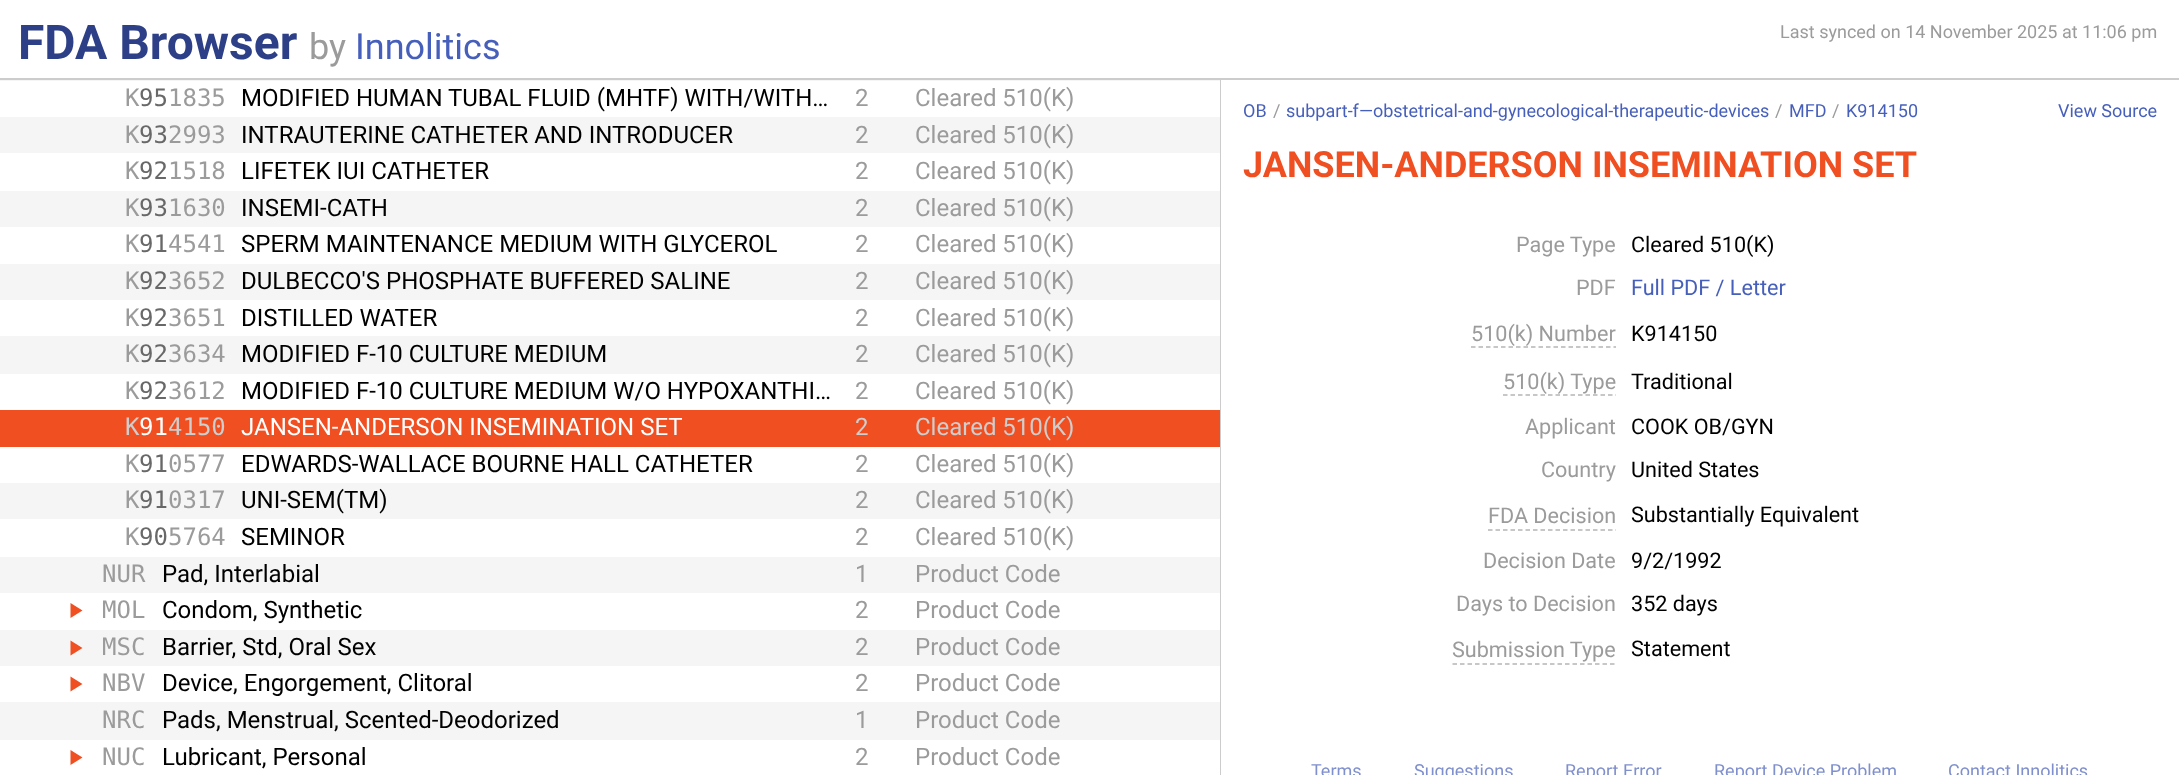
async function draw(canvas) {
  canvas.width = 2179
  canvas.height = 775
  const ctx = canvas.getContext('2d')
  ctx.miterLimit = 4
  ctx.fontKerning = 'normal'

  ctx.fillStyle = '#fff'
  ctx.fillRect(0, 0, 2179, 775)
  ctx.fillStyle = '#ccc'
  ctx.fillRect(0, 78, 2179, 2)
  ctx.font = 'bold 48px Roboto'
  ctx.fillStyle = '#2d4087'
  ctx.fillText('FDA Browser', 18, 59)
  ctx.font = '36px Roboto'
  ctx.fillStyle = '#9b9b9b'
  ctx.fillText('by', 309, 59)
  ctx.fillStyle = '#465fbb'
  ctx.fillText('Innolitics', 355, 59)
  ctx.fillStyle = '#ccc'
  ctx.fillRect(1220, 80, 1, 695)
  ctx.fillStyle = '#f5f5f5'
  ctx.fillRect(0, 80, 1220, 660)
  ctx.fillStyle = '#fff'
  ctx.fillRect(0, 81, 1220, 36)
  ctx.font = '24px DejaVu Sans Mono'
  ctx.fillStyle = '#9b9b9b'
  ctx.fillText('K', 125, 106)
  ctx.fillStyle = '#686868'
  ctx.fillText('95', 139, 106)
  ctx.fillStyle = '#9b9b9b'
  ctx.fillText('1835', 168, 106)
  ctx.font = '24px Roboto'
  ctx.fillStyle = '#000'
  ctx.fillText('MODIFIED HUMAN TUBAL FLUID (MHTF) WITH/WITH…', 241, 106)
  ctx.fillStyle = '#9b9b9b'
  ctx.fillText('2', 855, 106)
  ctx.fillText('Cleared 510(K)', 915, 106)
  ctx.font = '24px DejaVu Sans Mono'
  ctx.fillText('K', 125, 143)
  ctx.fillStyle = '#686868'
  ctx.fillText('93', 139, 143)
  ctx.fillStyle = '#9b9b9b'
  ctx.fillText('2993', 168, 143)
  ctx.font = '24px Roboto'
  ctx.fillStyle = '#000'
  ctx.fillText('INTRAUTERINE CATHETER AND INTRODUCER', 241, 143)
  ctx.fillStyle = '#9b9b9b'
  ctx.fillText('2', 855, 143)
  ctx.fillText('Cleared 510(K)', 915, 143)
  ctx.fillStyle = '#fff'
  ctx.fillRect(0, 153, 1220, 38)
  ctx.font = '24px DejaVu Sans Mono'
  ctx.fillStyle = '#9b9b9b'
  ctx.fillText('K', 125, 179)
  ctx.fillStyle = '#686868'
  ctx.fillText('92', 139, 179)
  ctx.fillStyle = '#9b9b9b'
  ctx.fillText('1518', 168, 179)
  ctx.font = '24px Roboto'
  ctx.fillStyle = '#000'
  ctx.fillText('LIFETEK IUI CATHETER', 241, 179)
  ctx.fillStyle = '#9b9b9b'
  ctx.fillText('2', 855, 179)
  ctx.fillText('Cleared 510(K)', 915, 179)
  ctx.font = '24px DejaVu Sans Mono'
  ctx.fillText('K', 125, 216)
  ctx.fillStyle = '#686868'
  ctx.fillText('93', 139, 216)
  ctx.fillStyle = '#9b9b9b'
  ctx.fillText('1630', 168, 216)
  ctx.font = '24px Roboto'
  ctx.fillStyle = '#000'
  ctx.fillText('INSEMI-CATH', 241, 216)
  ctx.fillStyle = '#9b9b9b'
  ctx.fillText('2', 855, 216)
  ctx.fillText('Cleared 510(K)', 915, 216)
  ctx.fillStyle = '#fff'
  ctx.fillRect(0, 227, 1220, 37)
  ctx.font = '24px DejaVu Sans Mono'
  ctx.fillStyle = '#9b9b9b'
  ctx.fillText('K', 125, 252)
  ctx.fillStyle = '#686868'
  ctx.fillText('91', 139, 252)
  ctx.fillStyle = '#9b9b9b'
  ctx.fillText('4541', 168, 252)
  ctx.font = '24px Roboto'
  ctx.fillStyle = '#000'
  ctx.fillText('SPERM MAINTENANCE MEDIUM WITH GLYCEROL', 241, 252)
  ctx.fillStyle = '#9b9b9b'
  ctx.fillText('2', 855, 252)
  ctx.fillText('Cleared 510(K)', 915, 252)
  ctx.font = '24px DejaVu Sans Mono'
  ctx.fillText('K', 125, 289)
  ctx.fillStyle = '#686868'
  ctx.fillText('92', 139, 289)
  ctx.fillStyle = '#9b9b9b'
  ctx.fillText('3652', 168, 289)
  ctx.font = '24px Roboto'
  ctx.fillStyle = '#000'
  ctx.fillText('DULBECCO\'S PHOSPHATE BUFFERED SALINE', 241, 289)
  ctx.fillStyle = '#9b9b9b'
  ctx.fillText('2', 855, 289)
  ctx.fillText('Cleared 510(K)', 915, 289)
  ctx.fillStyle = '#fff'
  ctx.fillRect(0, 300, 1220, 36)
  ctx.font = '24px DejaVu Sans Mono'
  ctx.fillStyle = '#9b9b9b'
  ctx.fillText('K', 125, 326)
  ctx.fillStyle = '#686868'
  ctx.fillText('92', 139, 326)
  ctx.fillStyle = '#9b9b9b'
  ctx.fillText('3651', 168, 326)
  ctx.font = '24px Roboto'
  ctx.fillStyle = '#000'
  ctx.fillText('DISTILLED WATER', 241, 326)
  ctx.fillStyle = '#9b9b9b'
  ctx.fillText('2', 855, 326)
  ctx.fillText('Cleared 510(K)', 915, 326)
  ctx.font = '24px DejaVu Sans Mono'
  ctx.fillText('K', 125, 362)
  ctx.fillStyle = '#686868'
  ctx.fillText('92', 139, 362)
  ctx.fillStyle = '#9b9b9b'
  ctx.fillText('3634', 168, 362)
  ctx.font = '24px Roboto'
  ctx.fillStyle = '#000'
  ctx.fillText('MODIFIED F-10 CULTURE MEDIUM', 241, 362)
  ctx.fillStyle = '#9b9b9b'
  ctx.fillText('2', 855, 362)
  ctx.fillText('Cleared 510(K)', 915, 362)
  ctx.fillStyle = '#fff'
  ctx.fillRect(0, 374, 1220, 36)
  ctx.font = '24px DejaVu Sans Mono'
  ctx.fillStyle = '#9b9b9b'
  ctx.fillText('K', 125, 399)
  ctx.fillStyle = '#686868'
  ctx.fillText('92', 139, 399)
  ctx.fillStyle = '#9b9b9b'
  ctx.fillText('3612', 168, 399)
  ctx.font = '24px Roboto'
  ctx.fillStyle = '#000'
  ctx.fillText('MODIFIED F-10 CULTURE MEDIUM W/O HYPOXANTHI…', 241, 399)
  ctx.fillStyle = '#9b9b9b'
  ctx.fillText('2', 855, 399)
  ctx.fillText('Cleared 510(K)', 915, 399)
  ctx.fillStyle = '#f04f22'
  ctx.fillRect(0, 410, 1220, 37)
  ctx.font = '24px DejaVu Sans Mono'
  ctx.fillStyle = '#cecece'
  ctx.fillText('K', 125, 435)
  ctx.fillStyle = '#fff'
  ctx.fillText('91', 139, 435)
  ctx.fillStyle = '#cecece'
  ctx.fillText('4150', 168, 435)
  ctx.font = '24px Roboto'
  ctx.fillStyle = '#fff'
  ctx.fillText('JANSEN-ANDERSON INSEMINATION SET', 241, 435)
  ctx.fillStyle = '#cecece'
  ctx.fillText('2', 855, 435)
  ctx.fillText('Cleared 510(K)', 915, 435)
  ctx.fillStyle = '#fff'
  ctx.fillRect(0, 447, 1220, 36)
  ctx.font = '24px DejaVu Sans Mono'
  ctx.fillStyle = '#9b9b9b'
  ctx.fillText('K', 125, 472)
  ctx.fillStyle = '#686868'
  ctx.fillText('91', 139, 472)
  ctx.fillStyle = '#9b9b9b'
  ctx.fillText('0577', 168, 472)
  ctx.font = '24px Roboto'
  ctx.fillStyle = '#000'
  ctx.fillText('EDWARDS-WALLACE BOURNE HALL CATHETER', 241, 472)
  ctx.fillStyle = '#9b9b9b'
  ctx.fillText('2', 855, 472)
  ctx.fillText('Cleared 510(K)', 915, 472)
  ctx.font = '24px DejaVu Sans Mono'
  ctx.fillText('K', 125, 508)
  ctx.fillStyle = '#686868'
  ctx.fillText('91', 139, 508)
  ctx.fillStyle = '#9b9b9b'
  ctx.fillText('0317', 168, 508)
  ctx.font = '24px Roboto'
  ctx.fillStyle = '#000'
  ctx.fillText('UNI-SEM(TM)', 241, 508)
  ctx.fillStyle = '#9b9b9b'
  ctx.fillText('2', 855, 508)
  ctx.fillText('Cleared 510(K)', 915, 508)
  ctx.fillStyle = '#fff'
  ctx.fillRect(0, 519, 1220, 38)
  ctx.font = '24px DejaVu Sans Mono'
  ctx.fillStyle = '#9b9b9b'
  ctx.fillText('K', 125, 545)
  ctx.fillStyle = '#686868'
  ctx.fillText('90', 139, 545)
  ctx.fillStyle = '#9b9b9b'
  ctx.fillText('5764', 168, 545)
  ctx.font = '24px Roboto'
  ctx.fillStyle = '#000'
  ctx.fillText('SEMINOR', 241, 545)
  ctx.fillStyle = '#9b9b9b'
  ctx.fillText('2', 855, 545)
  ctx.fillText('Cleared 510(K)', 915, 545)
  ctx.font = '24px DejaVu Sans Mono'
  ctx.fillText('NUR', 102, 582)
  ctx.font = '24px Roboto'
  ctx.fillStyle = '#000'
  ctx.fillText('Pad, Interlabial', 162, 582)
  ctx.fillStyle = '#9b9b9b'
  ctx.fillText('1', 855, 582)
  ctx.fillText('Product Code', 915, 582)
  ctx.fillStyle = '#fff'
  ctx.fillRect(0, 593, 1220, 37)
  ctx.fillStyle = '#f04f22'
  ctx.beginPath()
  ctx.moveTo(70.5, 618)
  ctx.lineTo(70.5, 603)
  ctx.lineTo(82.5, 610.5)
  ctx.closePath()
  ctx.fill()
  ctx.font = '24px DejaVu Sans Mono'
  ctx.fillStyle = '#9b9b9b'
  ctx.fillText('MOL', 102, 618)
  ctx.font = '24px Roboto'
  ctx.fillStyle = '#000'
  ctx.fillText('Condom, Synthetic', 162, 618)
  ctx.fillStyle = '#9b9b9b'
  ctx.fillText('2', 855, 618)
  ctx.fillText('Product Code', 915, 618)
  ctx.fillStyle = '#f04f22'
  ctx.beginPath()
  ctx.moveTo(70.5, 655.5)
  ctx.lineTo(70.5, 640.5)
  ctx.lineTo(82.5, 648)
  ctx.closePath()
  ctx.fill()
  ctx.font = '24px DejaVu Sans Mono'
  ctx.fillStyle = '#9b9b9b'
  ctx.fillText('MSC', 102, 655)
  ctx.font = '24px Roboto'
  ctx.fillStyle = '#000'
  ctx.fillText('Barrier, Std, Oral Sex', 162, 655)
  ctx.fillStyle = '#9b9b9b'
  ctx.fillText('2', 855, 655)
  ctx.fillText('Product Code', 915, 655)
  ctx.fillStyle = '#fff'
  ctx.fillRect(0, 666, 1220, 36)
  ctx.fillStyle = '#f04f22'
  ctx.beginPath()
  ctx.moveTo(70.5, 691.5)
  ctx.lineTo(70.5, 676.5)
  ctx.lineTo(82.5, 684)
  ctx.closePath()
  ctx.fill()
  ctx.font = '24px DejaVu Sans Mono'
  ctx.fillStyle = '#9b9b9b'
  ctx.fillText('NBV', 102, 691)
  ctx.font = '24px Roboto'
  ctx.fillStyle = '#000'
  ctx.fillText('Device, Engorgement, Clitoral', 162, 691)
  ctx.fillStyle = '#9b9b9b'
  ctx.fillText('2', 855, 691)
  ctx.fillText('Product Code', 915, 691)
  ctx.font = '24px DejaVu Sans Mono'
  ctx.fillText('NRC', 102, 728)
  ctx.font = '24px Roboto'
  ctx.fillStyle = '#000'
  ctx.fillText('Pads, Menstrual, Scented-Deodorized', 162, 728)
  ctx.fillStyle = '#9b9b9b'
  ctx.fillText('1', 855, 728)
  ctx.fillText('Product Code', 915, 728)
  ctx.fillStyle = '#f04f22'
  ctx.beginPath()
  ctx.moveTo(70.5, 765)
  ctx.lineTo(70.5, 750)
  ctx.lineTo(82.5, 757.5)
  ctx.closePath()
  ctx.fill()
  ctx.font = '24px DejaVu Sans Mono'
  ctx.fillStyle = '#9b9b9b'
  ctx.fillText('NUC', 102, 765)
  ctx.font = '24px Roboto'
  ctx.fillStyle = '#000'
  ctx.fillText('Lubricant, Personal', 162, 765)
  ctx.fillStyle = '#9b9b9b'
  ctx.fillText('2', 855, 765)
  ctx.fillText('Product Code', 915, 765)
  ctx.font = '18px Roboto'
  ctx.fillText('Last synced on 14 November 2025 at 11:06 pm', 1780, 38)
  ctx.fillStyle = '#465fbb'
  ctx.fillText('OB', 1243, 117)
  ctx.fillStyle = '#9b9b9b'
  ctx.fillText('/', 1273, 117)
  ctx.fillStyle = '#465fbb'
  ctx.fillText('subpart-f—obstetrical-and-gynecological-therapeutic-devices', 1286, 117)
  ctx.fillStyle = '#9b9b9b'
  ctx.fillText('/', 1775, 117)
  ctx.fillStyle = '#465fbb'
  ctx.fillText('MFD', 1789, 117)
  ctx.fillStyle = '#9b9b9b'
  ctx.fillText('/', 1832, 117)
  ctx.fillStyle = '#465fbb'
  ctx.fillText('K914150', 1846, 117)
  ctx.fillText('View Source', 2058, 117)
  ctx.font = 'bold 36px Roboto'
  ctx.fillStyle = '#f04f22'
  ctx.fillText('JANSEN-ANDERSON INSEMINATION SET', 1243, 177)
  ctx.font = '21.6px Roboto'
  ctx.fillStyle = '#9b9b9b'
  ctx.fillText('Page Type', 1516, 252)
  ctx.fillStyle = '#000'
  ctx.fillText('Cleared 510(K)', 1631, 252)
  ctx.fillStyle = '#9b9b9b'
  ctx.fillText('PDF', 1576, 295)
  ctx.fillStyle = '#465fbb'
  ctx.fillText('Full PDF / Letter', 1631, 295)
  ctx.fillStyle = '#9b9b9b'
  ctx.fillText('510(k) Number', 1471, 341)
  ctx.beginPath()
  ctx.moveTo(1471, 347)
  ctx.lineTo(1616, 347)
  ctx.strokeStyle = '#b5b5b5'
  ctx.lineWidth = 1.5
  ctx.setLineDash([4.5, 3])
  ctx.stroke()
  ctx.fillStyle = '#000'
  ctx.fillText('K914150', 1631, 341)
  ctx.fillStyle = '#9b9b9b'
  ctx.fillText('510(k) Type', 1503, 389)
  ctx.beginPath()
  ctx.moveTo(1503, 395)
  ctx.lineTo(1616, 395)
  ctx.stroke()
  ctx.fillStyle = '#000'
  ctx.fillText('Traditional', 1631, 389)
  ctx.fillStyle = '#9b9b9b'
  ctx.fillText('Applicant', 1525, 434)
  ctx.fillStyle = '#000'
  ctx.fillText('COOK OB/GYN', 1631, 434)
  ctx.fillStyle = '#9b9b9b'
  ctx.fillText('Country', 1541, 477)
  ctx.fillStyle = '#000'
  ctx.fillText('United States', 1631, 477)
  ctx.fillStyle = '#9b9b9b'
  ctx.fillText('FDA Decision', 1488, 523)
  ctx.beginPath()
  ctx.moveTo(1488, 530)
  ctx.lineTo(1616, 530)
  ctx.stroke()
  ctx.fillStyle = '#000'
  ctx.fillText('Substantially Equivalent', 1631, 522)
  ctx.fillStyle = '#9b9b9b'
  ctx.fillText('Decision Date', 1483, 568)
  ctx.fillStyle = '#000'
  ctx.fillText('9/2/1992', 1631, 568)
  ctx.fillStyle = '#9b9b9b'
  ctx.fillText('Days to Decision', 1456, 611)
  ctx.fillStyle = '#000'
  ctx.fillText('352 days', 1631, 611)
  ctx.fillStyle = '#9b9b9b'
  ctx.fillText('Submission Type', 1452, 657)
  ctx.beginPath()
  ctx.moveTo(1452.5, 664)
  ctx.lineTo(1616, 664)
  ctx.stroke()
  ctx.fillStyle = '#000'
  ctx.fillText('Statement', 1631, 656)
  ctx.font = '18px Roboto'
  ctx.fillStyle = '#8090cd'
  ctx.fillText('Terms', 1311, 777)
  ctx.fillText('Suggestions', 1414, 777)
  ctx.fillText('Report Error', 1565, 777)
  ctx.fillText('Report Device Problem', 1714, 777)
  ctx.fillText('Contact Innolitics', 1948, 777)
}

draw(document.querySelector('canvas'))
